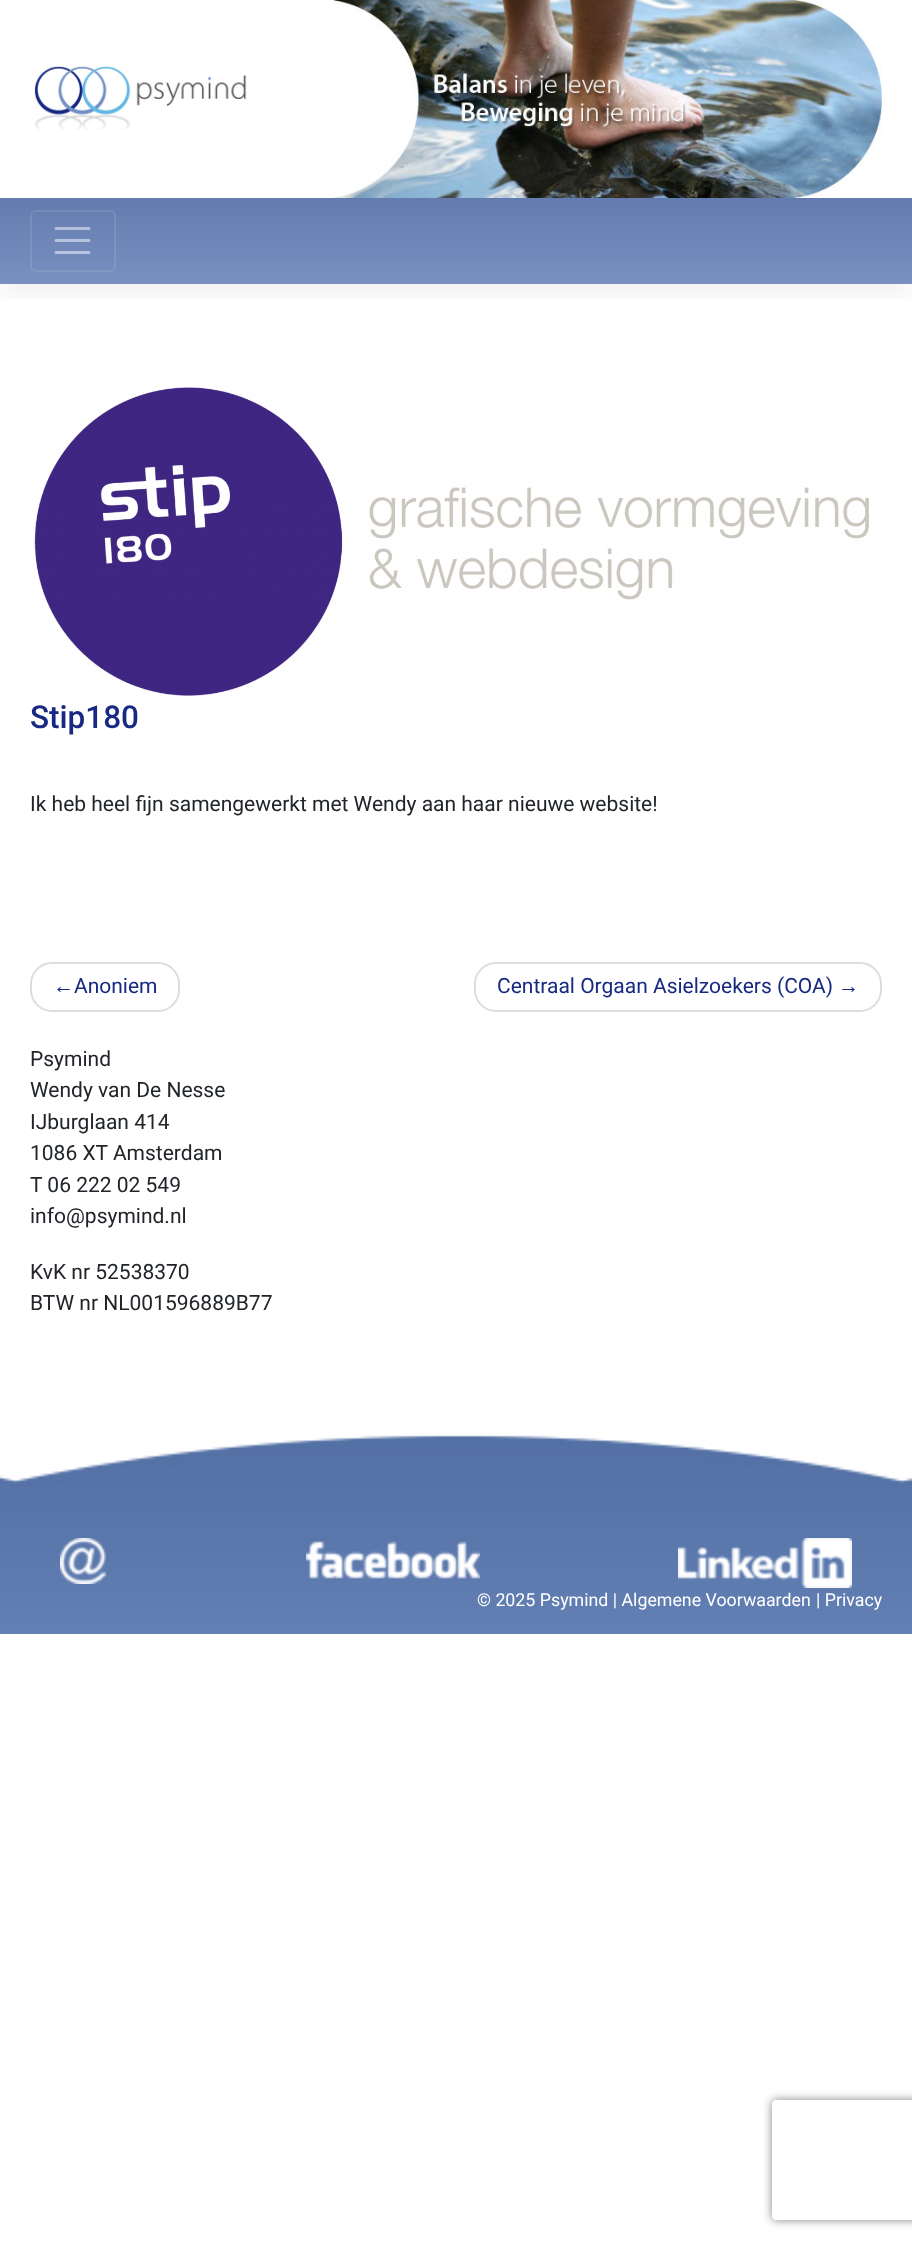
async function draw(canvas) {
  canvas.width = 912
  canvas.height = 2247
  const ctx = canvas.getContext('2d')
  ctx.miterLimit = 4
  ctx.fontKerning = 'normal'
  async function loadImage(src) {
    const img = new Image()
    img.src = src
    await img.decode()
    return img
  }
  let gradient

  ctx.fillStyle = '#fff'
  ctx.fillRect(0, 0, 912, 2247)
  ctx.save()
  ctx.beginPath()
  ctx.rect(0, 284, 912, 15)
  ctx.clip()
  ctx.fillStyle = '#0000000d'
  ctx.filter = 'blur(12px)'
  ctx.beginPath()
  ctx.rect(0, 12, 912, 284)
  ctx.fill()
  ctx.filter = 'none'
  ctx.restore()
  ctx.drawImage(await loadImage('image0.png'), 34, 66, 213, 64)
  ctx.drawImage(await loadImage('image1.png'), 334, 0, 548, 198)
  gradient = ctx.createLinearGradient(456, 198, 456, 284)
  gradient.addColorStop(0, '#637bae')
  gradient.addColorStop(1, '#7990c1')
  ctx.fillStyle = gradient
  ctx.fillRect(0, 198, 912, 86)
  ctx.beginPath()
  ctx.roundRect(31, 211, 84, 60, 5)
  ctx.strokeStyle = '#ffffff1a'
  ctx.lineWidth = 2
  ctx.stroke()
  ctx.beginPath()
  ctx.moveTo(56, 228.5)
  ctx.lineTo(89, 228.5)
  ctx.moveTo(56, 240.5)
  ctx.lineTo(89, 240.5)
  ctx.moveTo(56, 252.5)
  ctx.lineTo(89, 252.5)
  ctx.strokeStyle = '#ffffff80'
  ctx.lineWidth = 3
  ctx.lineCap = 'round'
  ctx.stroke()
  ctx.drawImage(await loadImage('image2.png'), 34, 387, 835, 309)
  ctx.font = '500 31.5px Roboto'
  ctx.fillStyle = '#172983'
  ctx.fillText('Stip180', 30, 728)
  ctx.font = '21px Roboto'
  ctx.fillStyle = '#212529'
  ctx.fillText('Ik heb heel fijn samengewerkt met Wendy aan haar nieuwe website!', 30, 811)
  ctx.beginPath()
  ctx.roundRect(31, 963, 148, 48, 21)
  ctx.strokeStyle = '#ddd'
  ctx.lineWidth = 2
  ctx.stroke()
  ctx.font = '21px Liberation Sans'
  ctx.fillStyle = '#172983'
  ctx.fillText('←', 53, 993)
  ctx.font = '21px Roboto'
  ctx.fillText('Anoniem', 74, 993)
  ctx.beginPath()
  ctx.roundRect(475, 963, 406, 48, 21)
  ctx.stroke()
  ctx.fillText('Centraal Orgaan Asielzoekers (COA)', 497, 993)
  ctx.font = '21px Liberation Sans'
  ctx.fillText('→', 838, 993)
  ctx.font = '21px Roboto'
  ctx.fillStyle = '#212529'
  ctx.fillText('Psymind', 30, 1066)
  ctx.fillText('Wendy van De Nesse', 30, 1097)
  ctx.fillText('IJburglaan 414', 30, 1129)
  ctx.fillText('1086 XT Amsterdam', 30, 1160)
  ctx.fillText('T 06 222 02 549', 30, 1192)
  ctx.fillText('info@psymind.nl', 30, 1223)
  ctx.fillText('KvK nr 52538370', 30, 1279)
  ctx.fillText('BTW nr NL001596889B77', 30, 1310)
  ctx.drawImage(await loadImage('image3.png'), 0, 1434, 912, 200)
  ctx.drawImage(await loadImage('image4.png'), 60, 1538, 46, 46)
  ctx.drawImage(await loadImage('image5.png'), 306, 1541, 174, 38)
  ctx.drawImage(await loadImage('image6.png'), 678, 1538, 174, 50)
  ctx.font = '17.8px Roboto'
  ctx.fillStyle = '#fff'
  ctx.fillText('© 2025 Psymind | Algemene Voorwaarden', 477, 1606)
  ctx.fillText('| Privacy', 816, 1606)
  ctx.save()
  ctx.beginPath()
  ctx.moveTo(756, 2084)
  ctx.lineTo(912, 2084)
  ctx.lineTo(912, 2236)
  ctx.lineTo(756, 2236)
  ctx.closePath()
  ctx.moveTo(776, 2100)
  ctx.lineTo(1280, 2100)
  ctx.bezierCurveTo(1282, 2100, 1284, 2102, 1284, 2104)
  ctx.lineTo(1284, 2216)
  ctx.bezierCurveTo(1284, 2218, 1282, 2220, 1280, 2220)
  ctx.lineTo(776, 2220)
  ctx.bezierCurveTo(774, 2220, 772, 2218, 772, 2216)
  ctx.lineTo(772, 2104)
  ctx.bezierCurveTo(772, 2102, 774, 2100, 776, 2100)
  ctx.closePath()
  ctx.clip('evenodd')
  ctx.fillStyle = '#808080'
  ctx.filter = 'blur(5px)'
  ctx.beginPath()
  ctx.roundRect(772, 2100, 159, 120, 4)
  ctx.fill()
  ctx.filter = 'none'
  ctx.restore()
}

draw(document.querySelector('canvas'))
